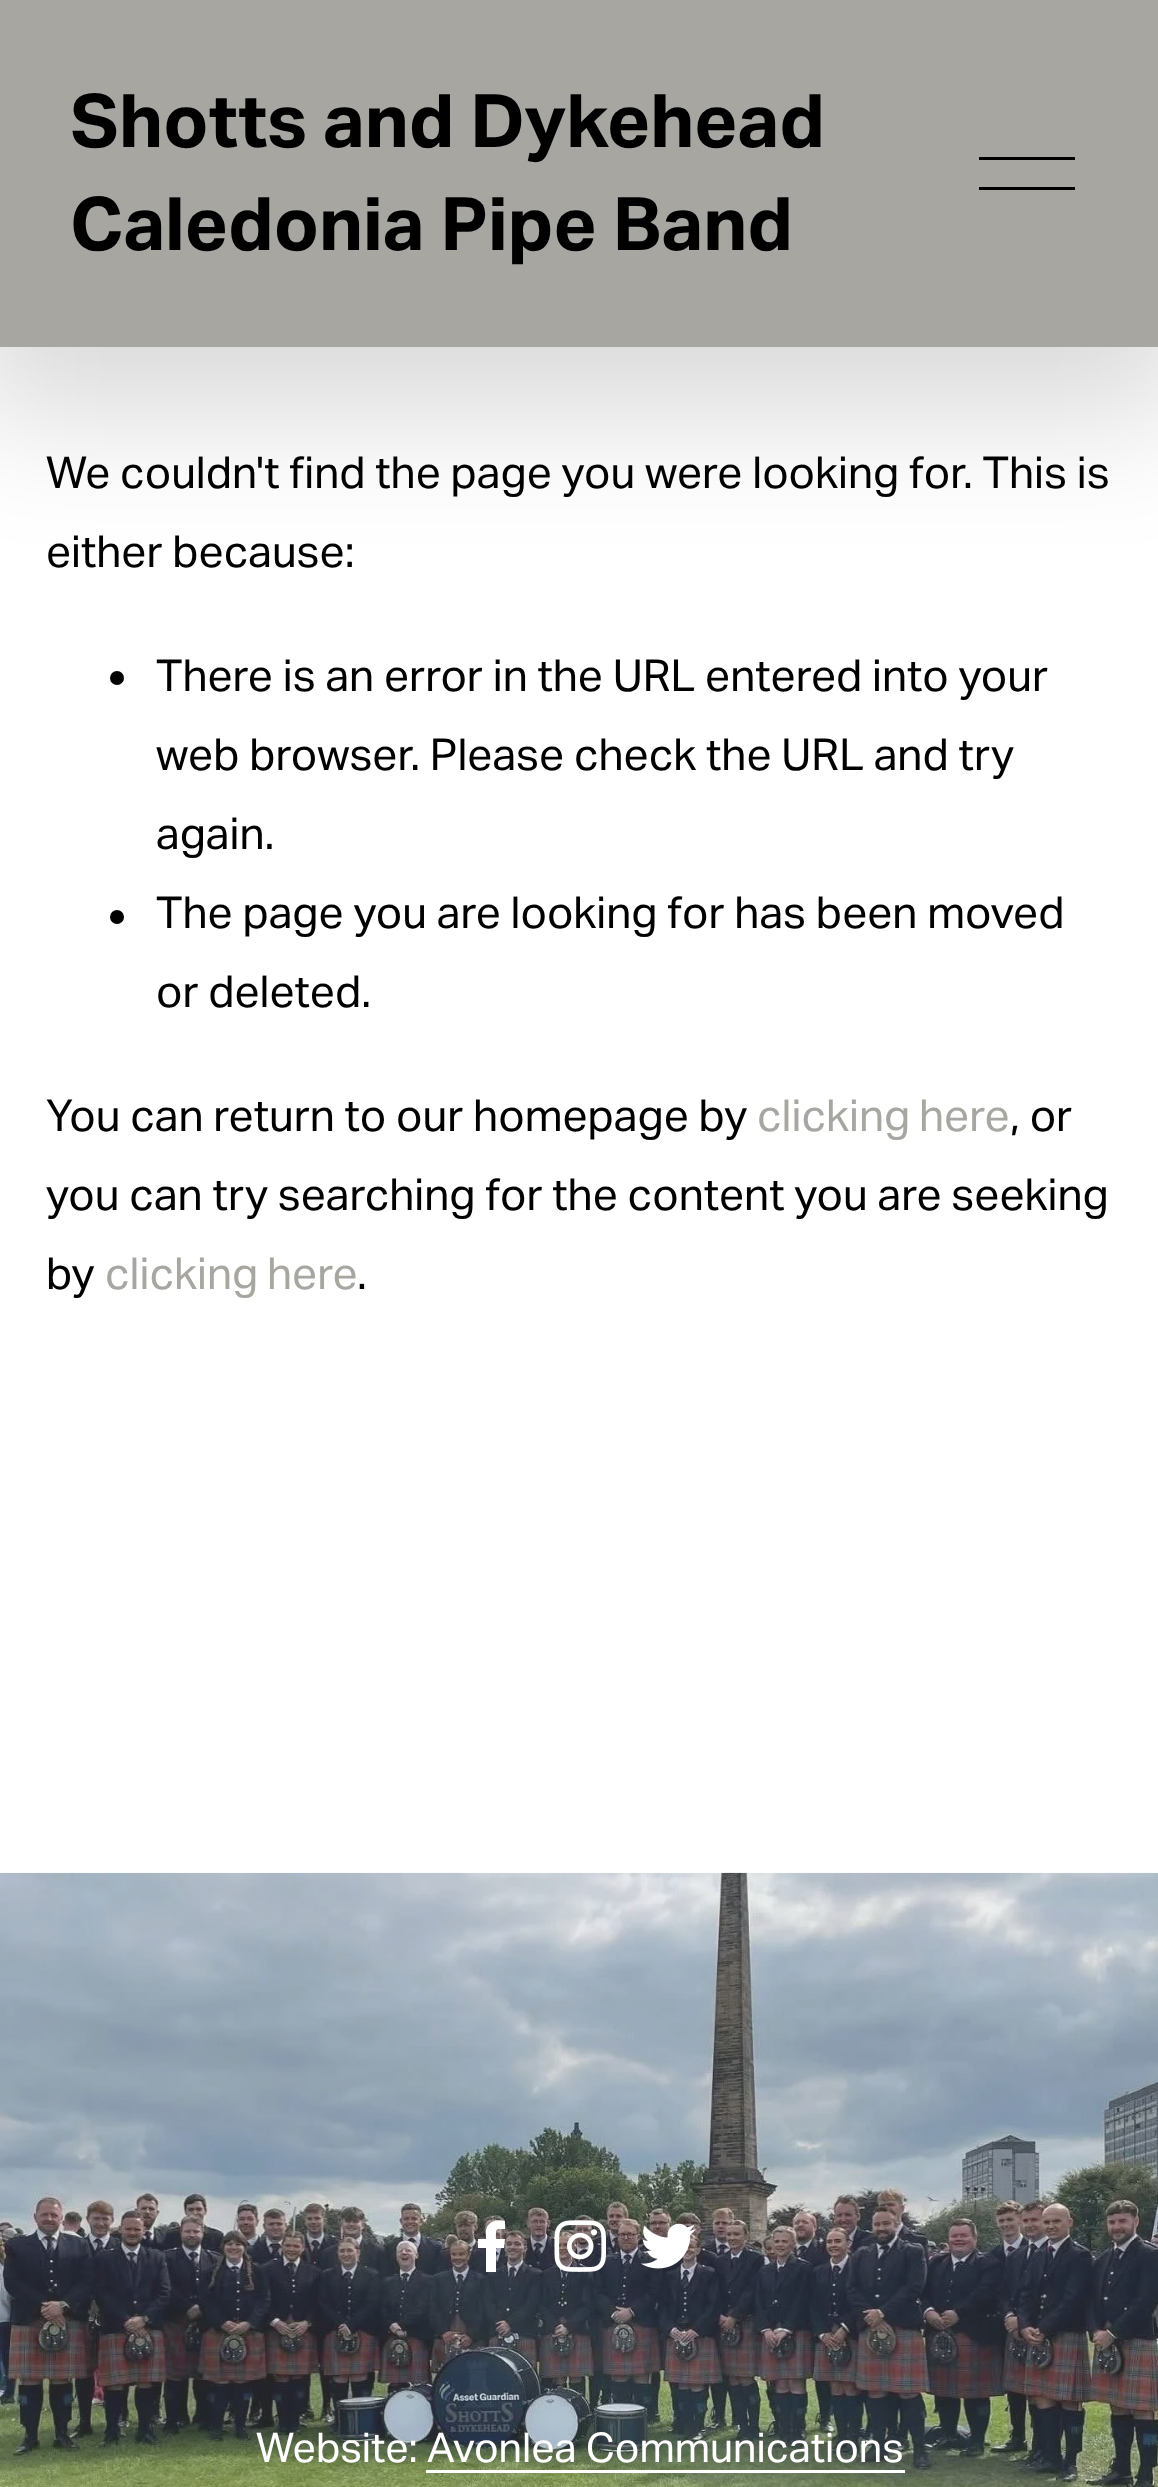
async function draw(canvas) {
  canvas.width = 1158
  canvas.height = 2487
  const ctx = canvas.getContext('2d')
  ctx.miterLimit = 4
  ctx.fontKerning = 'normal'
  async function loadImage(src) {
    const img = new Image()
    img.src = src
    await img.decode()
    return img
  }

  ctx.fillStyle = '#fff'
  ctx.fillRect(0, 0, 1158, 2487)
  ctx.fillStyle = '#00000026'
  ctx.filter = 'blur(66px)'
  ctx.beginPath()
  ctx.rect(-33, 0, 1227, 413)
  ctx.fill()
  ctx.filter = 'none'
  ctx.fillStyle = '#a8a6a1'
  ctx.fillRect(0, 0, 1158, 347)
  ctx.font = 'bold 73.75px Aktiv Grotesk'
  ctx.fillStyle = '#000'
  ctx.fillText('Shotts and Dykehead', 70, 147)
  ctx.fillText('Caledonia Pipe Band', 70, 250)
  ctx.fillRect(979, 157, 96, 3)
  ctx.fillRect(979, 187, 96, 3)
  ctx.font = '44px Aktiv Grotesk'
  ctx.fillText('We couldn\'t find the page you were looking for. This is', 46, 488)
  ctx.fillText('either because:', 46, 567)
  ctx.beginPath()
  ctx.arc(117, 678, 7, 0, 2 * Math.PI)
  ctx.fill()
  ctx.fillText('There is an error in the URL entered into your', 156, 691)
  ctx.fillText('web browser. Please check the URL and try', 156, 770)
  ctx.fillText('again.', 156, 849)
  ctx.beginPath()
  ctx.arc(117, 917, 7, 0, 2 * Math.PI)
  ctx.fill()
  ctx.fillText('The page you are looking for has been moved', 156, 928)
  ctx.fillText('or deleted.', 156, 1007)
  ctx.fillText('You can return to our homepage by', 46, 1131)
  ctx.wordSpacing = '-1px'
  ctx.fillStyle = '#a8a6a1'
  ctx.fillText('clicking here', 757, 1131)
  ctx.wordSpacing = '0px'
  ctx.fillStyle = '#000'
  ctx.fillText(', or', 1010, 1131)
  ctx.fillText('you can try searching for the content you are seeking', 46, 1210)
  ctx.fillText('by', 46, 1289)
  ctx.wordSpacing = '-1px'
  ctx.fillStyle = '#a8a6a1'
  ctx.fillText('clicking here', 105, 1289)
  ctx.wordSpacing = '0px'
  ctx.fillStyle = '#000'
  ctx.fillText('.', 357, 1289)
  ctx.drawImage(await loadImage('image0.png'), 0, 1872, 1158, 615)
  ctx.fillStyle = '#fff'
  ctx.beginPath()
  ctx.moveTo(496, 2272)
  ctx.lineTo(496, 2248)
  ctx.lineTo(504, 2248)
  ctx.lineTo(505, 2239)
  ctx.lineTo(496, 2239)
  ctx.bezierCurveTo(496, 2229, 495, 2229, 505, 2229)
  ctx.lineTo(505, 2221)
  ctx.bezierCurveTo(498, 2219, 488, 2221, 486, 2230)
  ctx.lineTo(486, 2239)
  ctx.lineTo(478, 2239)
  ctx.lineTo(478, 2248)
  ctx.lineTo(486, 2248)
  ctx.lineTo(486, 2272)
  ctx.closePath()
  ctx.fill()
  ctx.drawImage(await loadImage('image1.png'), 554, 2220, 53, 52)
  ctx.drawImage(await loadImage('image2.png'), 641, 2223, 55, 46)
  ctx.font = '41px Aktiv Grotesk'
  ctx.fillText('Website: Avonlea Communications', 256, 2462)
  ctx.fillRect(426, 2470, 479, 3)
}

draw(document.querySelector('canvas'))
